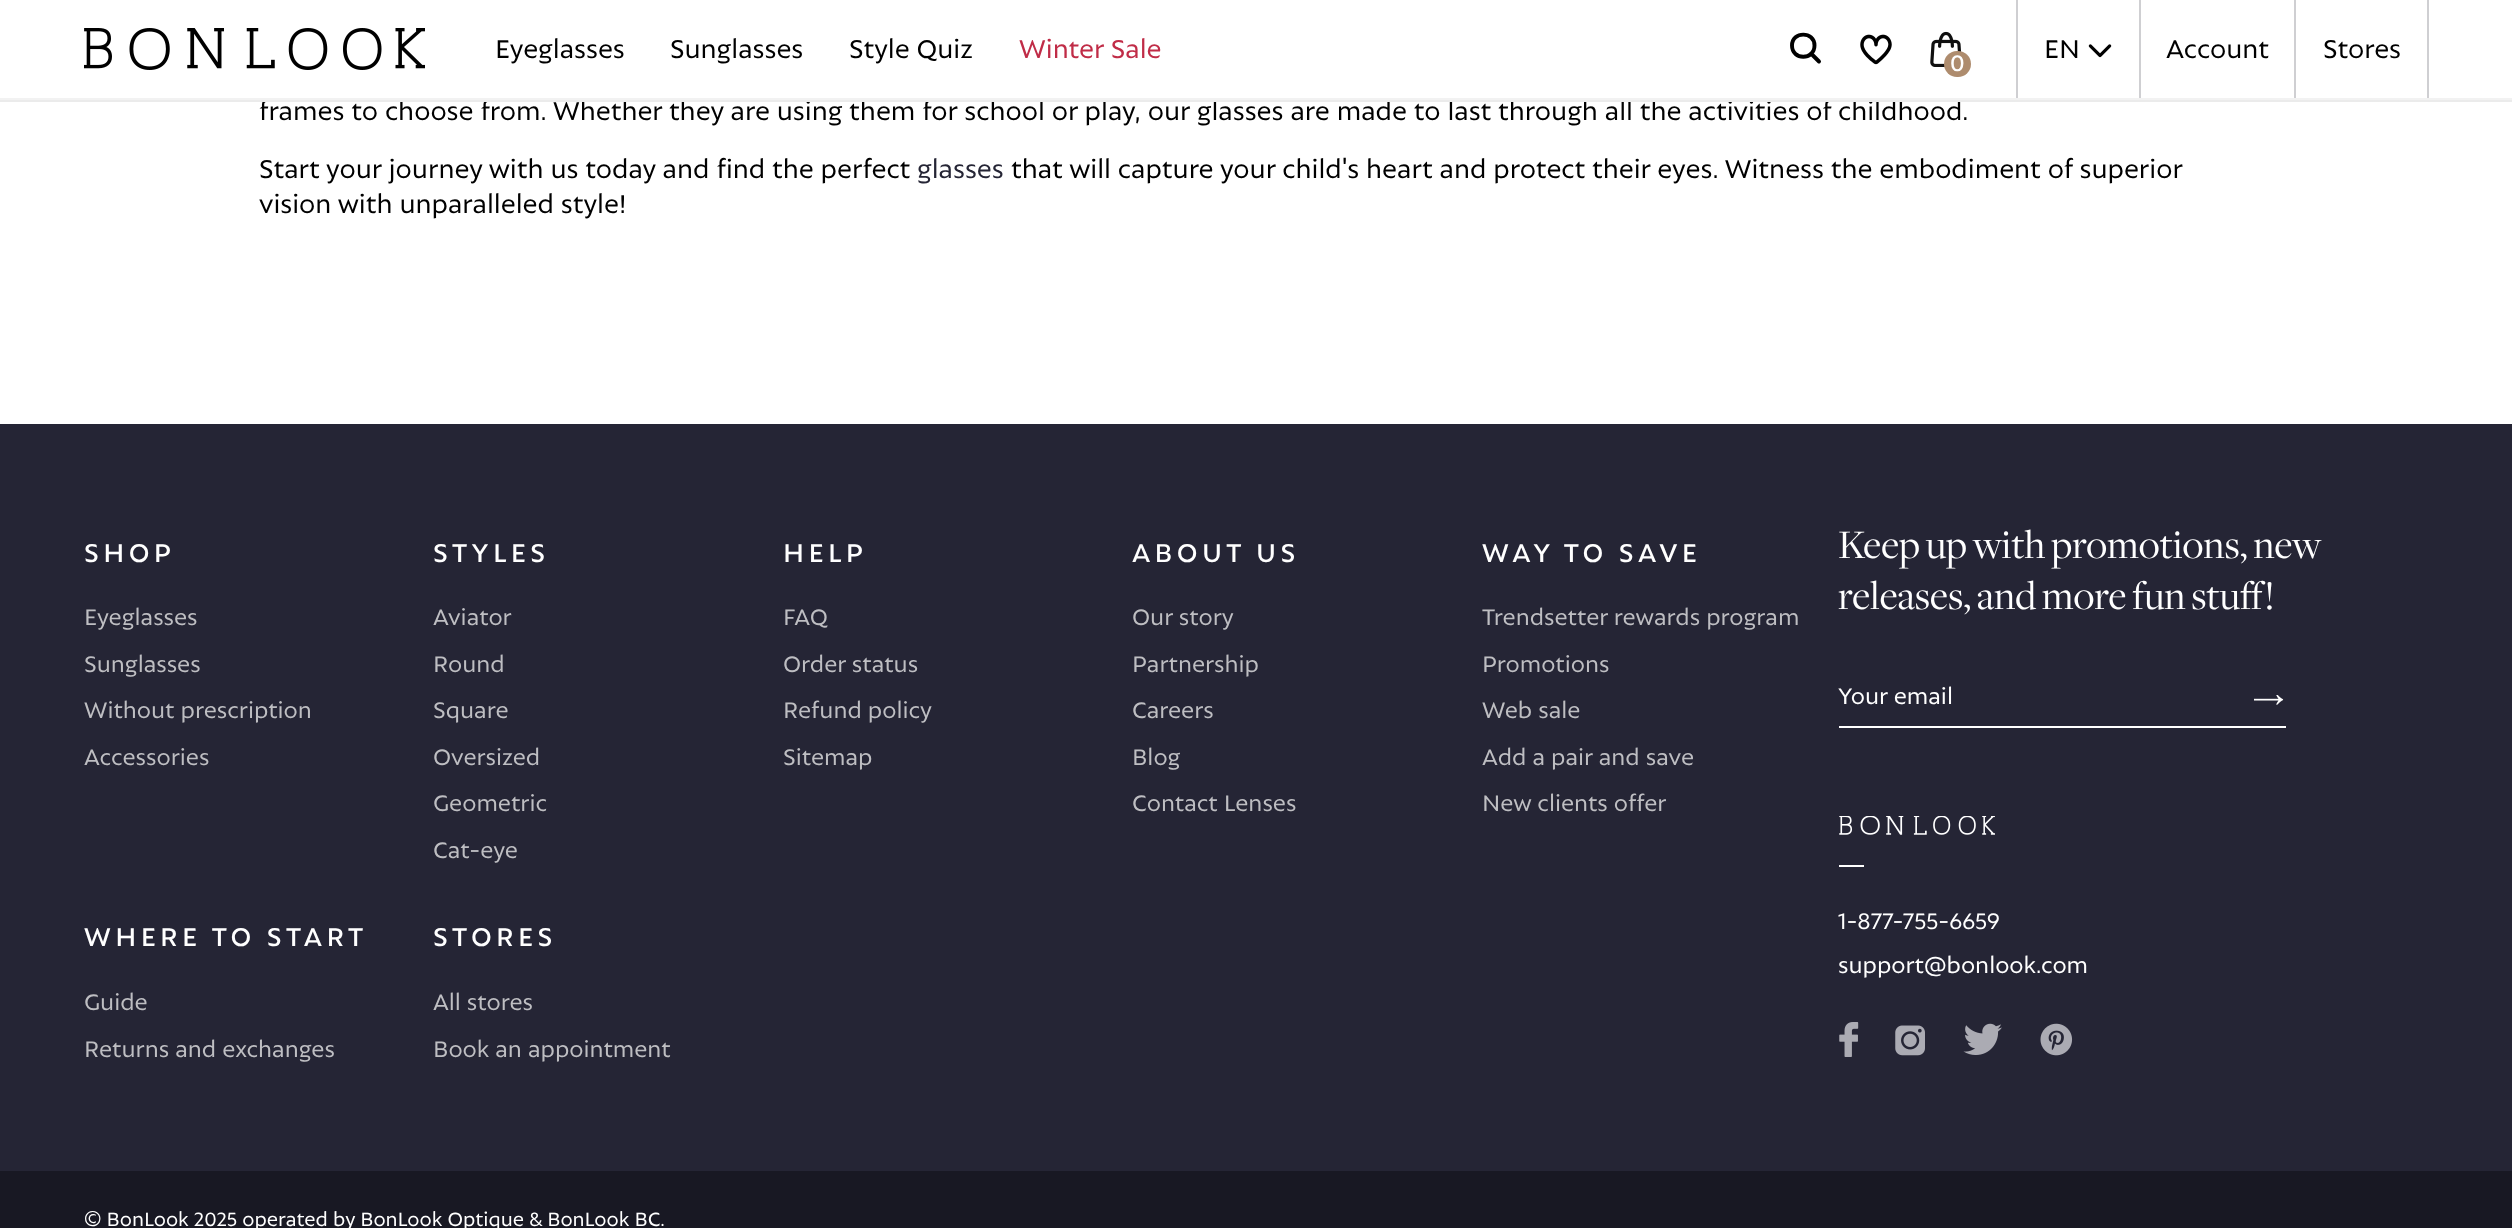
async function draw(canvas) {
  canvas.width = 2512
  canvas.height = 1228
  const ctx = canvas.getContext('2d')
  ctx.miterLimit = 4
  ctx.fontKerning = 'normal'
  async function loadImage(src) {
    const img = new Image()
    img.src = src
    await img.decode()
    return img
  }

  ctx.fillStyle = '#fff'
  ctx.fillRect(0, 0, 2512, 1228)
  ctx.font = '28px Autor'
  ctx.fillStyle = '#000'
  ctx.fillText('frames to choose from. Whether they are using them for school or play, our glasses are made to last through all the activities of childhood.', 259, 120)
  ctx.fillStyle = '#f2f2f2'
  ctx.fillRect(0, 98, 2512, 2)
  ctx.drawImage(await loadImage('image0.png'), 84, 28, 341, 42)
  ctx.fillStyle = '#000'
  ctx.fillText('Eyeglasses', 495, 58)
  ctx.fillText('Sunglasses', 670, 58)
  ctx.fillText('Style Quiz', 849, 58)
  ctx.fillStyle = '#c02c47'
  ctx.fillText('Winter Sale', 1019, 58)
  ctx.fillStyle = '#cfcfd2'
  ctx.fillRect(2016, 0, 2, 98)
  ctx.fillStyle = '#000'
  ctx.fillText('EN', 2044, 58)
  ctx.drawImage(await loadImage('image1.png'), 2088, 44, 24, 14)
  ctx.fillStyle = '#cfcfd2'
  ctx.fillRect(2139, 0, 2, 98)
  ctx.fillStyle = '#000'
  ctx.fillText('Account', 2166, 58)
  ctx.fillStyle = '#cfcfd2'
  ctx.fillRect(2294, 0, 2, 98)
  ctx.fillStyle = '#000'
  ctx.fillText('Stores', 2323, 58)
  ctx.fillStyle = '#cfcfd2'
  ctx.fillRect(2427, 0, 2, 98)
  ctx.beginPath()
  ctx.moveTo(1811, 53.5)
  ctx.lineTo(1819, 61.5)
  ctx.moveTo(1814.5, 45.5)
  ctx.bezierCurveTo(1814.5, 60.5, 1792, 60.5, 1792, 45.5)
  ctx.bezierCurveTo(1792, 31, 1814.5, 31, 1814.5, 45.5)
  ctx.closePath()
  ctx.strokeStyle = '#000'
  ctx.lineWidth = 3.9
  ctx.lineCap = 'round'
  ctx.lineJoin = 'round'
  ctx.stroke()
  ctx.drawImage(await loadImage('image2.png'), 1860, 34, 32, 31)
  ctx.drawImage(await loadImage('image3.png'), 1930, 31, 32, 36)
  ctx.fillStyle = '#ae8c6e'
  ctx.beginPath()
  ctx.roundRect(1944, 51, 27, 26, 13)
  ctx.fill()
  ctx.font = '500 24.5px Autor'
  ctx.fillStyle = '#fff'
  ctx.fillText('0', 1950, 71)
  ctx.font = '28px Autor'
  ctx.fillStyle = '#000'
  ctx.fillText('Start your journey with us today and find the perfect', 259, 178)
  ctx.fillStyle = '#252535'
  ctx.fillText('glasses', 917, 178)
  ctx.fillStyle = '#000'
  ctx.fillText('that will capture your child\'s heart and protect their eyes. Witness the embodiment of superior', 1011, 178)
  ctx.fillText('vision with unparalleled style!', 259, 213)
  ctx.fillStyle = '#ebebeb'
  ctx.fillRect(0, 100, 2512, 2)
  ctx.fillStyle = '#252535'
  ctx.fillRect(0, 424, 2512, 747)
  ctx.letterSpacing = '4.4px'
  ctx.font = '500 28px Autor'
  ctx.fillStyle = '#fff'
  ctx.fillText('SHOP', 84, 562)
  ctx.letterSpacing = '0px'
  ctx.font = '24.5px Autor'
  ctx.fillStyle = '#bebec2'
  ctx.fillText('Eyeglasses', 84, 625)
  ctx.fillText('Sunglasses', 84, 672)
  ctx.fillText('Without prescription', 84, 718)
  ctx.fillText('Accessories', 84, 765)
  ctx.letterSpacing = '4.4px'
  ctx.font = '500 28px Autor'
  ctx.fillStyle = '#fff'
  ctx.fillText('STYLES', 433, 562)
  ctx.letterSpacing = '0px'
  ctx.font = '24.5px Autor'
  ctx.fillStyle = '#bebec2'
  ctx.fillText('Aviator', 433, 625)
  ctx.fillText('Round', 433, 672)
  ctx.fillText('Square', 433, 718)
  ctx.fillText('Oversized', 433, 765)
  ctx.fillText('Geometric', 433, 811)
  ctx.fillText('Cat-eye', 433, 858)
  ctx.letterSpacing = '4.4px'
  ctx.font = '500 28px Autor'
  ctx.fillStyle = '#fff'
  ctx.fillText('HELP', 783, 562)
  ctx.letterSpacing = '0px'
  ctx.font = '24.5px Autor'
  ctx.fillStyle = '#bebec2'
  ctx.fillText('FAQ', 783, 625)
  ctx.fillText('Order status', 783, 672)
  ctx.fillText('Refund policy', 783, 718)
  ctx.fillText('Sitemap', 783, 765)
  ctx.letterSpacing = '4.4px'
  ctx.font = '500 28px Autor'
  ctx.fillStyle = '#fff'
  ctx.fillText('ABOUT US', 1132, 562)
  ctx.letterSpacing = '0px'
  ctx.font = '24.5px Autor'
  ctx.fillStyle = '#bebec2'
  ctx.fillText('Our story', 1132, 625)
  ctx.fillText('Partnership', 1132, 672)
  ctx.fillText('Careers', 1132, 718)
  ctx.fillText('Blog', 1132, 765)
  ctx.fillText('Contact Lenses', 1132, 811)
  ctx.letterSpacing = '4.4px'
  ctx.font = '500 28px Autor'
  ctx.fillStyle = '#fff'
  ctx.fillText('WAY TO SAVE', 1482, 562)
  ctx.letterSpacing = '0px'
  ctx.font = '24.5px Autor'
  ctx.fillStyle = '#bebec2'
  ctx.fillText('Trendsetter rewards program', 1482, 625)
  ctx.fillText('Promotions', 1482, 672)
  ctx.fillText('Web sale', 1482, 718)
  ctx.fillText('Add a pair and save', 1482, 765)
  ctx.fillText('New clients offer', 1482, 811)
  ctx.letterSpacing = '4.4px'
  ctx.font = '500 28px Autor'
  ctx.fillStyle = '#fff'
  ctx.fillText('WHERE TO START', 84, 946)
  ctx.letterSpacing = '0px'
  ctx.font = '24.5px Autor'
  ctx.fillStyle = '#bebec2'
  ctx.fillText('Guide', 84, 1010)
  ctx.fillText('Returns and exchanges', 84, 1057)
  ctx.letterSpacing = '4.4px'
  ctx.font = '500 28px Autor'
  ctx.fillStyle = '#fff'
  ctx.fillText('STORES', 433, 946)
  ctx.letterSpacing = '0px'
  ctx.font = '24.5px Autor'
  ctx.fillStyle = '#bebec2'
  ctx.fillText('All stores', 433, 1010)
  ctx.fillText('Book an appointment', 433, 1057)
  ctx.font = '42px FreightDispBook'
  ctx.fillStyle = '#fff'
  ctx.fillText('Keep up with promotions, new', 1838, 558)
  ctx.fillText('releases, and more fun stuff!', 1838, 609)
  ctx.fillRect(1839, 726, 447, 2)
  ctx.font = '24.5px Autor'
  ctx.fillText('Your email', 1838, 704)
  ctx.drawImage(await loadImage('image4.png'), 2254, 695, 30, 10)
  ctx.drawImage(await loadImage('image5.png'), 1839, 816, 156, 19)
  ctx.fillRect(1839, 865, 25, 2)
  ctx.fillText('1-877-755-6659', 1838, 929)
  ctx.fillText('support@bonlook.com', 1838, 973)
  ctx.drawImage(await loadImage('image6.png'), 1839, 1022, 20, 35)
  ctx.drawImage(await loadImage('image7.png'), 1895, 1025, 30, 31)
  ctx.drawImage(await loadImage('image8.png'), 1963, 1023, 39, 32)
  ctx.drawImage(await loadImage('image9.png'), 2040, 1023, 33, 33)
  ctx.fillStyle = '#181823'
  ctx.fillRect(0, 1171, 2512, 57)
  ctx.font = '21px Autor'
  ctx.fillStyle = '#fff'
  ctx.fillText('© BonLook 2025 operated by BonLook Optique & BonLook BC.', 84, 1226)
}

draw(document.querySelector('canvas'))
